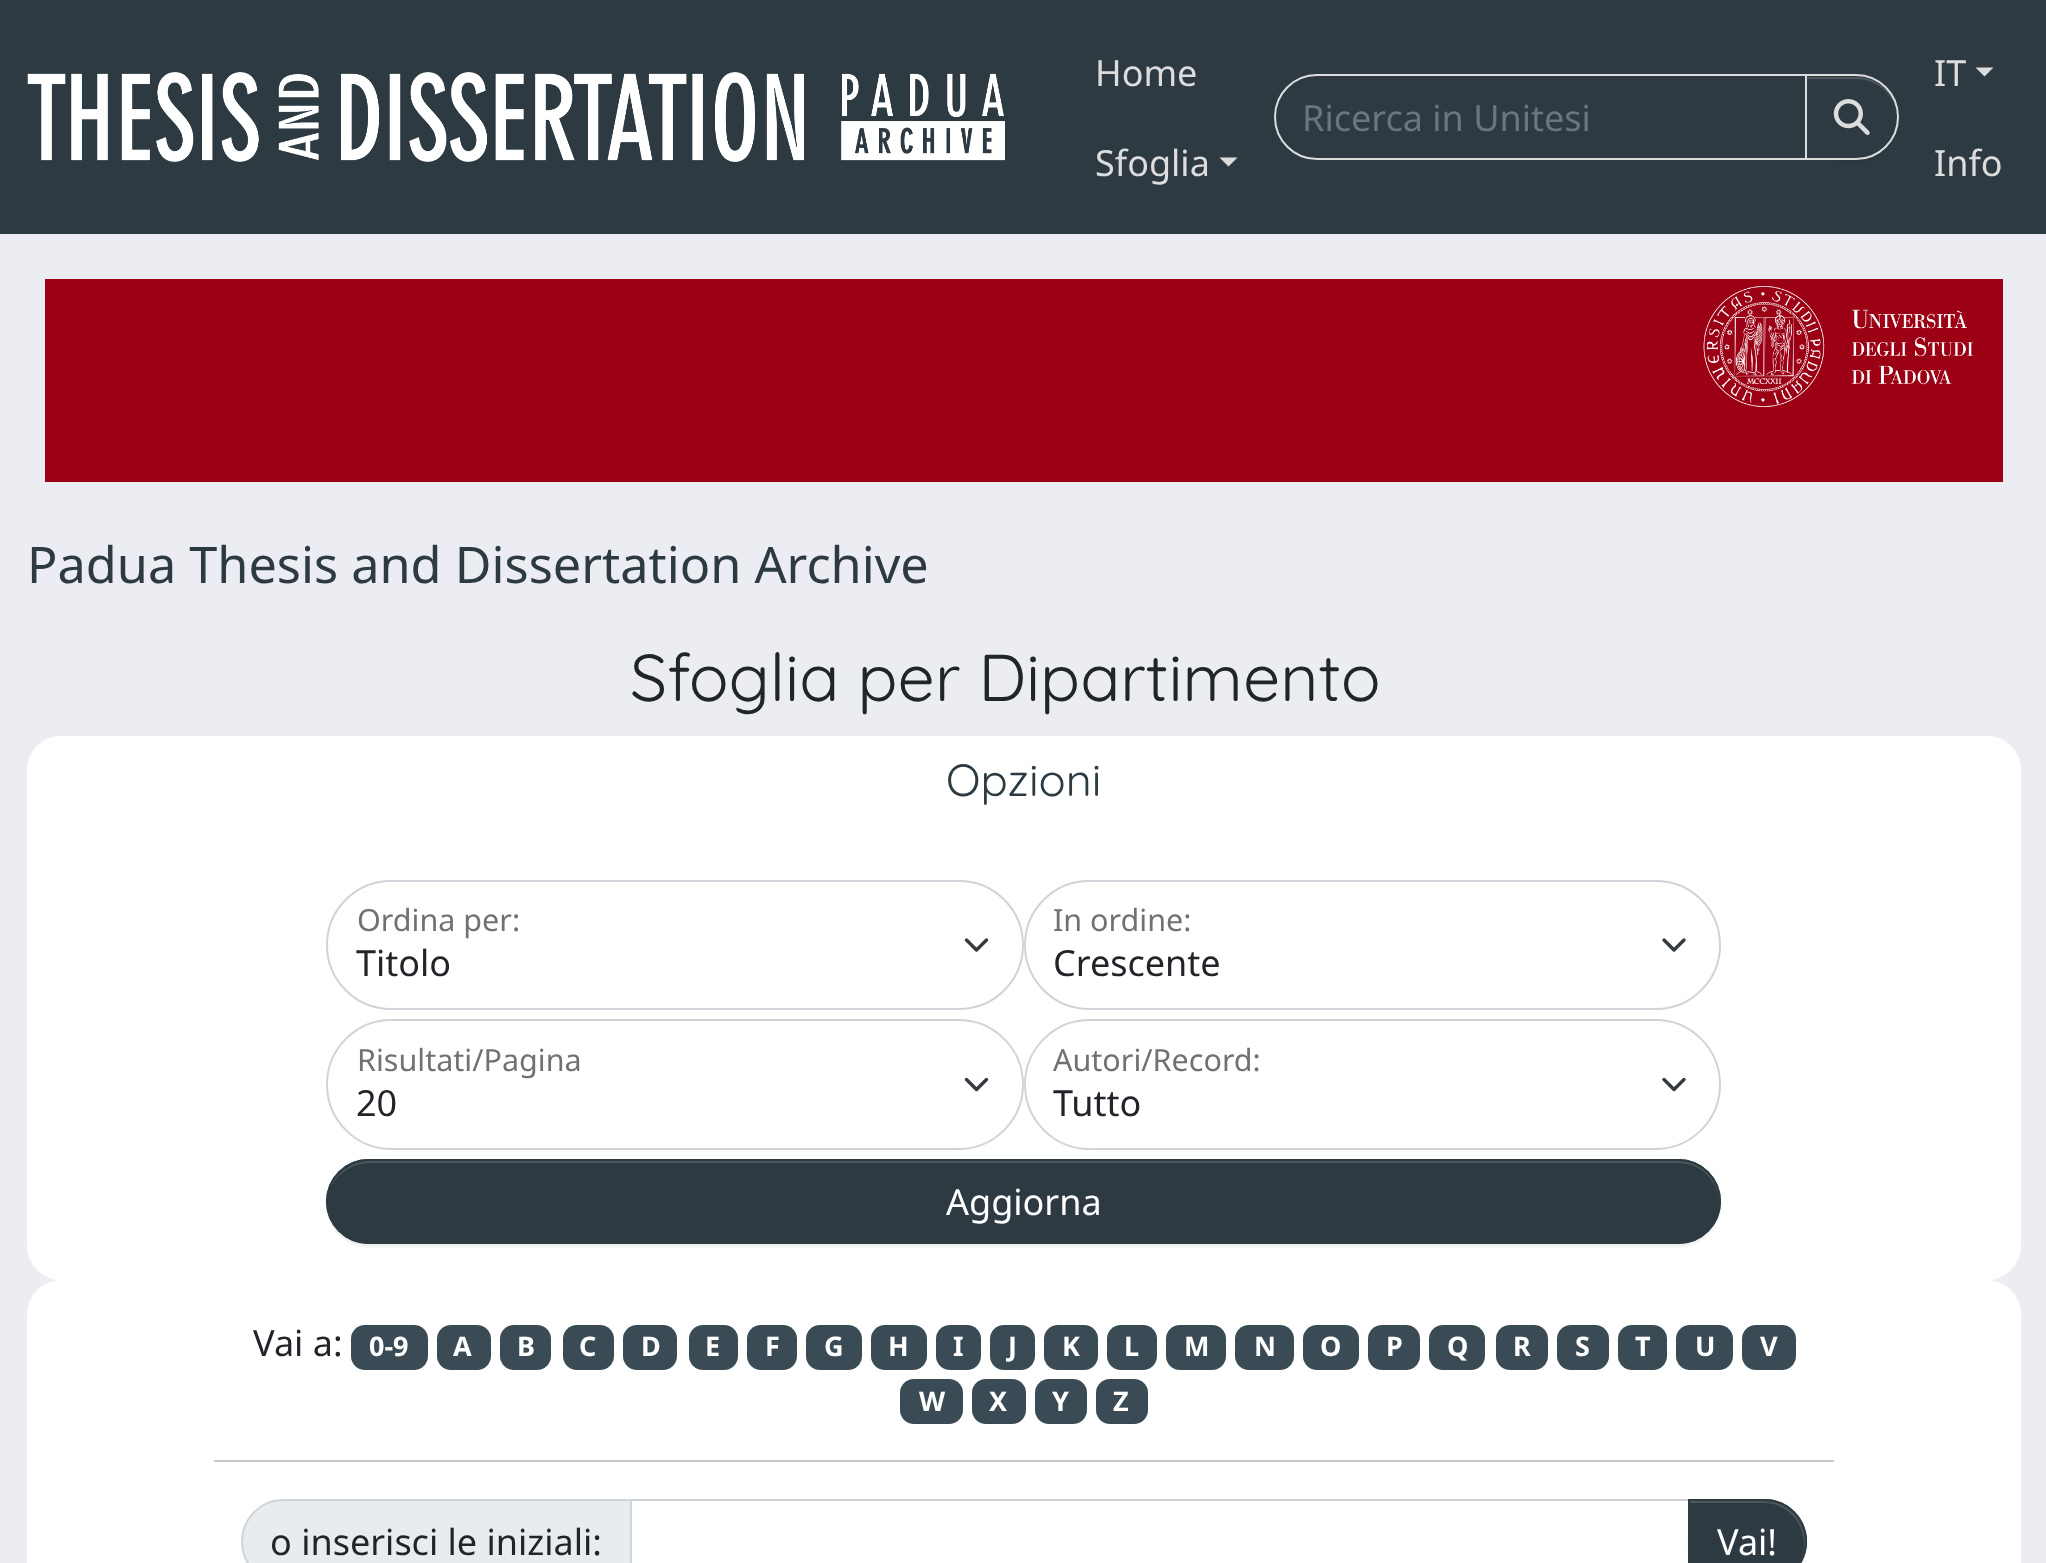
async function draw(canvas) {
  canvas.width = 2046
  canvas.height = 1563
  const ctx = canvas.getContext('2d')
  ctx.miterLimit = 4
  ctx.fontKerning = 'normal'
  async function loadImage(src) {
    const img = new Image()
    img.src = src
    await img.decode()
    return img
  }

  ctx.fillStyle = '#ecedf2'
  ctx.fillRect(0, 0, 2046, 1563)
  ctx.fillStyle = '#2d3a42'
  ctx.fillRect(0, 0, 2046, 234)
  ctx.drawImage(await loadImage('image0.png'), 27, 72, 978, 90)
  ctx.font = '36px Noto Sans'
  ctx.fillStyle = '#ddd'
  ctx.fillText('Home', 1095, 86)
  ctx.fillText('Sfoglia', 1095, 176)
  ctx.beginPath()
  ctx.moveTo(1219.5, 157.5)
  ctx.lineTo(1237.5, 157.5)
  ctx.lineTo(1228.5, 166.5)
  ctx.closePath()
  ctx.fill()
  ctx.beginPath()
  ctx.roundRect(1275, 75, 531, 84, [42, 0, 0, 42])
  ctx.strokeStyle = '#ddd'
  ctx.lineWidth = 2
  ctx.stroke()
  ctx.fillStyle = '#6c757d'
  ctx.fillText('Ricerca in Unitesi', 1302, 131)
  ctx.fillStyle = '#00000012'
  ctx.filter = 'blur(1px)'
  ctx.beginPath()
  ctx.roundRect(1805, 77, 94, 85, 42.5)
  ctx.fill()
  ctx.filter = 'none'
  ctx.fillStyle = '#2d3a42'
  ctx.beginPath()
  ctx.roundRect(1805, 74, 94, 86, [0, 43, 43, 0])
  ctx.fill()
  ctx.fillStyle = '#4d585e'
  ctx.beginPath()
  ctx.moveTo(1807, 79)
  ctx.lineTo(1856, 79)
  ctx.bezierCurveTo(1879, 79, 1897, 97, 1897, 118)
  ctx.bezierCurveTo(1897, 95, 1879, 77, 1856, 77)
  ctx.lineTo(1807, 77)
  ctx.closePath()
  ctx.fill()
  ctx.beginPath()
  ctx.roundRect(1806, 75, 92, 84, [0, 42, 42, 0])
  ctx.stroke()
  ctx.drawImage(await loadImage('image1.png'), 1833, 99, 37, 36)
  ctx.fillStyle = '#ddd'
  ctx.fillText('IT', 1934, 86)
  ctx.beginPath()
  ctx.moveTo(1975.5, 67.5)
  ctx.lineTo(1993.5, 67.5)
  ctx.lineTo(1984.5, 76.5)
  ctx.closePath()
  ctx.fill()
  ctx.fillText('Info', 1934, 176)
  ctx.fillStyle = '#9b0014'
  ctx.fillRect(45, 279, 1958, 203)
  ctx.drawImage(await loadImage('image2.png'), 1703, 286, 270, 121)
  ctx.font = '50.4px Noto Sans'
  ctx.fillStyle = '#2d3a42'
  ctx.fillText('Padua Thesis and Dissertation Archive', 27, 583)
  ctx.font = '66.1px Quicksand'
  ctx.fillStyle = '#212529'
  ctx.fillText('Sfoglia per Dipartimento', 630, 701)
  ctx.fillStyle = '#fff'
  ctx.beginPath()
  ctx.roundRect(27, 736, 1994, 544, 34)
  ctx.fill()
  ctx.beginPath()
  ctx.roundRect(27, 736, 1994, 108, [34, 34, 0, 0])
  ctx.fill()
  ctx.font = '45px Quicksand'
  ctx.fillStyle = '#2d3a42'
  ctx.fillText('Opzioni', 946, 796)
  ctx.beginPath()
  ctx.moveTo(966.5, 940)
  ctx.lineTo(976.5, 950)
  ctx.lineTo(986.5, 940)
  ctx.strokeStyle = '#343a40'
  ctx.lineWidth = 3.4
  ctx.lineCap = 'round'
  ctx.lineJoin = 'round'
  ctx.stroke()
  ctx.beginPath()
  ctx.roundRect(327, 881, 696, 128, 64)
  ctx.strokeStyle = '#ced4da'
  ctx.lineWidth = 2
  ctx.lineJoin = 'miter'
  ctx.stroke()
  ctx.font = '30.5px Noto Sans'
  ctx.fillStyle = '#6f7174'
  ctx.fillText('Ordina per:', 357, 931)
  ctx.font = '36px Noto Sans'
  ctx.fillStyle = '#212529'
  ctx.fillText('Titolo', 356, 976)
  ctx.beginPath()
  ctx.moveTo(1664, 940)
  ctx.lineTo(1674, 950)
  ctx.lineTo(1684, 940)
  ctx.strokeStyle = '#343a40'
  ctx.lineWidth = 3.4
  ctx.lineJoin = 'round'
  ctx.stroke()
  ctx.beginPath()
  ctx.roundRect(1025, 881, 695, 128, 64)
  ctx.strokeStyle = '#ced4da'
  ctx.lineWidth = 2
  ctx.lineJoin = 'miter'
  ctx.stroke()
  ctx.font = '30.5px Noto Sans'
  ctx.fillStyle = '#6f7174'
  ctx.fillText('In ordine:', 1053, 931)
  ctx.font = '36px Noto Sans'
  ctx.fillStyle = '#212529'
  ctx.fillText('Crescente', 1053, 976)
  ctx.beginPath()
  ctx.moveTo(966.5, 1079.5)
  ctx.lineTo(976.5, 1089.5)
  ctx.lineTo(986.5, 1079.5)
  ctx.strokeStyle = '#343a40'
  ctx.lineWidth = 3.4
  ctx.lineJoin = 'round'
  ctx.stroke()
  ctx.beginPath()
  ctx.roundRect(327, 1020, 696, 129, 64.5)
  ctx.strokeStyle = '#ced4da'
  ctx.lineWidth = 2
  ctx.lineJoin = 'miter'
  ctx.stroke()
  ctx.font = '30.5px Noto Sans'
  ctx.fillStyle = '#6f7174'
  ctx.fillText('Risultati/Pagina', 357, 1071)
  ctx.font = '36px Noto Sans'
  ctx.fillStyle = '#212529'
  ctx.fillText('20', 356, 1116)
  ctx.beginPath()
  ctx.moveTo(1664, 1079.5)
  ctx.lineTo(1674, 1089.5)
  ctx.lineTo(1684, 1079.5)
  ctx.strokeStyle = '#343a40'
  ctx.lineWidth = 3.4
  ctx.lineJoin = 'round'
  ctx.stroke()
  ctx.beginPath()
  ctx.roundRect(1025, 1020, 695, 129, 64.5)
  ctx.strokeStyle = '#ced4da'
  ctx.lineWidth = 2
  ctx.lineJoin = 'miter'
  ctx.stroke()
  ctx.font = '30.5px Noto Sans'
  ctx.fillStyle = '#6f7174'
  ctx.fillText('Autori/Record:', 1053, 1071)
  ctx.font = '36px Noto Sans'
  ctx.fillStyle = '#212529'
  ctx.fillText('Tutto', 1053, 1116)
  ctx.fillStyle = '#00000012'
  ctx.filter = 'blur(1px)'
  ctx.beginPath()
  ctx.roundRect(326, 1161, 1395, 86, 43)
  ctx.fill()
  ctx.filter = 'none'
  ctx.fillStyle = '#2d3a42'
  ctx.beginPath()
  ctx.roundRect(326, 1159, 1395, 85, 42.5)
  ctx.fill()
  ctx.fillStyle = '#4d585e'
  ctx.beginPath()
  ctx.moveTo(369, 1163)
  ctx.lineTo(1678, 1163)
  ctx.bezierCurveTo(1701, 1163, 1718, 1180, 1719, 1203)
  ctx.lineTo(1719, 1202)
  ctx.bezierCurveTo(1719, 1179, 1701, 1161, 1678, 1161)
  ctx.lineTo(370, 1161)
  ctx.bezierCurveTo(352, 1161, 337, 1172, 331, 1187)
  ctx.bezierCurveTo(338, 1173, 353, 1163, 369, 1163)
  ctx.closePath()
  ctx.fill()
  ctx.beginPath()
  ctx.roundRect(327, 1160, 1393, 83, 41.5)
  ctx.strokeStyle = '#2d3a42'
  ctx.stroke()
  ctx.fillStyle = '#fff'
  ctx.fillText('Aggiorna', 946, 1215)
  ctx.beginPath()
  ctx.roundRect(27, 1280, 1994, 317, 34)
  ctx.fill()
  ctx.fillStyle = '#212529'
  ctx.fillText('Vai a:', 253, 1356)
  ctx.fillStyle = '#3a4b55'
  ctx.beginPath()
  ctx.roundRect(351, 1325, 77, 45, 14)
  ctx.fill()
  ctx.font = 'bold 27px Noto Sans'
  ctx.fillStyle = '#fff'
  ctx.fillText('0-9', 369, 1356)
  ctx.fillStyle = '#3a4b55'
  ctx.beginPath()
  ctx.roundRect(437, 1325, 54, 45, 14)
  ctx.fill()
  ctx.fillStyle = '#fff'
  ctx.fillText('A', 453, 1356)
  ctx.fillStyle = '#3a4b55'
  ctx.beginPath()
  ctx.roundRect(500, 1325, 51, 45, 14)
  ctx.fill()
  ctx.fillStyle = '#fff'
  ctx.fillText('B', 517, 1356)
  ctx.fillStyle = '#3a4b55'
  ctx.beginPath()
  ctx.roundRect(563, 1325, 51, 45, 14)
  ctx.fill()
  ctx.fillStyle = '#fff'
  ctx.fillText('C', 579, 1356)
  ctx.fillStyle = '#3a4b55'
  ctx.beginPath()
  ctx.roundRect(623, 1325, 54, 45, 14)
  ctx.fill()
  ctx.fillStyle = '#fff'
  ctx.fillText('D', 641, 1356)
  ctx.fillStyle = '#3a4b55'
  ctx.beginPath()
  ctx.roundRect(689, 1325, 49, 45, 14)
  ctx.fill()
  ctx.fillStyle = '#fff'
  ctx.fillText('E', 705, 1356)
  ctx.fillStyle = '#3a4b55'
  ctx.beginPath()
  ctx.roundRect(747, 1325, 50, 45, 14)
  ctx.fill()
  ctx.fillStyle = '#fff'
  ctx.fillText('F', 765, 1356)
  ctx.fillStyle = '#3a4b55'
  ctx.beginPath()
  ctx.roundRect(806, 1325, 56, 45, 14)
  ctx.fill()
  ctx.fillStyle = '#fff'
  ctx.fillText('G', 824, 1356)
  ctx.fillStyle = '#3a4b55'
  ctx.beginPath()
  ctx.roundRect(871, 1325, 56, 45, 14)
  ctx.fill()
  ctx.fillStyle = '#fff'
  ctx.fillText('H', 888, 1356)
  ctx.fillStyle = '#3a4b55'
  ctx.beginPath()
  ctx.roundRect(936, 1325, 45, 45, 14)
  ctx.fill()
  ctx.fillStyle = '#fff'
  ctx.fillText('I', 953, 1356)
  ctx.fillStyle = '#3a4b55'
  ctx.beginPath()
  ctx.roundRect(990, 1325, 45, 45, 14)
  ctx.fill()
  ctx.fillStyle = '#fff'
  ctx.fillText('J', 1008, 1356)
  ctx.fillStyle = '#3a4b55'
  ctx.beginPath()
  ctx.roundRect(1044, 1325, 54, 45, 14)
  ctx.fill()
  ctx.fillStyle = '#fff'
  ctx.fillText('K', 1062, 1356)
  ctx.fillStyle = '#3a4b55'
  ctx.beginPath()
  ctx.roundRect(1107, 1325, 50, 45, 14)
  ctx.fill()
  ctx.fillStyle = '#fff'
  ctx.fillText('L', 1124, 1356)
  ctx.fillStyle = '#3a4b55'
  ctx.beginPath()
  ctx.roundRect(1166, 1325, 60, 45, 14)
  ctx.fill()
  ctx.fillStyle = '#fff'
  ctx.fillText('M', 1184, 1356)
  ctx.fillStyle = '#3a4b55'
  ctx.beginPath()
  ctx.roundRect(1235, 1325, 59, 45, 14)
  ctx.fill()
  ctx.fillStyle = '#fff'
  ctx.fillText('N', 1254, 1356)
  ctx.fillStyle = '#3a4b55'
  ctx.beginPath()
  ctx.roundRect(1303, 1325, 56, 45, 14)
  ctx.fill()
  ctx.fillStyle = '#fff'
  ctx.fillText('O', 1320, 1356)
  ctx.fillStyle = '#3a4b55'
  ctx.beginPath()
  ctx.roundRect(1368, 1325, 52, 45, 14)
  ctx.fill()
  ctx.fillStyle = '#fff'
  ctx.fillText('P', 1386, 1356)
  ctx.fillStyle = '#3a4b55'
  ctx.beginPath()
  ctx.roundRect(1429, 1325, 56, 45, 14)
  ctx.fill()
  ctx.fillStyle = '#fff'
  ctx.fillText('Q', 1447, 1356)
  ctx.fillStyle = '#3a4b55'
  ctx.beginPath()
  ctx.roundRect(1496, 1325, 52, 45, 14)
  ctx.fill()
  ctx.fillStyle = '#fff'
  ctx.fillText('R', 1513, 1356)
  ctx.fillStyle = '#3a4b55'
  ctx.beginPath()
  ctx.roundRect(1557, 1325, 52, 45, 14)
  ctx.fill()
  ctx.fillStyle = '#fff'
  ctx.fillText('S', 1575, 1356)
  ctx.fillStyle = '#3a4b55'
  ctx.beginPath()
  ctx.roundRect(1618, 1325, 49, 45, 14)
  ctx.fill()
  ctx.fillStyle = '#fff'
  ctx.fillText('T', 1635, 1356)
  ctx.fillStyle = '#3a4b55'
  ctx.beginPath()
  ctx.roundRect(1676, 1325, 57, 45, 14)
  ctx.fill()
  ctx.fillStyle = '#fff'
  ctx.fillText('U', 1695, 1356)
  ctx.fillStyle = '#3a4b55'
  ctx.beginPath()
  ctx.roundRect(1742, 1325, 54, 45, 14)
  ctx.fill()
  ctx.fillStyle = '#fff'
  ctx.fillText('V', 1760, 1356)
  ctx.fillStyle = '#3a4b55'
  ctx.beginPath()
  ctx.roundRect(900, 1379, 63, 45, 14)
  ctx.fill()
  ctx.fillStyle = '#fff'
  ctx.fillText('W', 919, 1411)
  ctx.fillStyle = '#3a4b55'
  ctx.beginPath()
  ctx.roundRect(972, 1379, 54, 45, 14)
  ctx.fill()
  ctx.fillStyle = '#fff'
  ctx.fillText('X', 989, 1411)
  ctx.fillStyle = '#3a4b55'
  ctx.beginPath()
  ctx.roundRect(1035, 1379, 52, 45, 14)
  ctx.fill()
  ctx.fillStyle = '#fff'
  ctx.fillText('Y', 1052, 1411)
  ctx.fillStyle = '#3a4b55'
  ctx.beginPath()
  ctx.roundRect(1096, 1379, 52, 45, 14)
  ctx.fill()
  ctx.fillStyle = '#fff'
  ctx.fillText('Z', 1113, 1411)
  ctx.fillStyle = '#c8c9ca'
  ctx.fillRect(214, 1460, 1620, 2)
  ctx.fillStyle = '#e9ecef'
  ctx.beginPath()
  ctx.moveTo(283.5, 1500)
  ctx.lineTo(631, 1500)
  ctx.lineTo(631, 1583)
  ctx.lineTo(283.5, 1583)
  ctx.bezierCurveTo(260.5, 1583, 242, 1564.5, 242, 1541.5)
  ctx.bezierCurveTo(242, 1518.5, 260.5, 1500, 283.5, 1500)
  ctx.closePath()
  ctx.fill()
  ctx.strokeStyle = '#ced4da'
  ctx.stroke()
  ctx.font = '36px Noto Sans'
  ctx.fillStyle = '#212529'
  ctx.fillText('o inserisci le iniziali:', 270, 1555)
  ctx.strokeRect(631, 1500, 1058, 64)
  ctx.fillStyle = '#00000012'
  ctx.filter = 'blur(1px)'
  ctx.beginPath()
  ctx.roundRect(1688, 1501, 119, 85, 42.5)
  ctx.fill()
  ctx.filter = 'none'
  ctx.fillStyle = '#2d3a42'
  ctx.beginPath()
  ctx.moveTo(1688, 1499)
  ctx.lineTo(1764.5, 1499)
  ctx.bezierCurveTo(1788, 1499, 1807, 1518, 1807, 1541.5)
  ctx.bezierCurveTo(1807, 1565, 1788, 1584, 1764.5, 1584)
  ctx.lineTo(1688, 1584)
  ctx.closePath()
  ctx.fill()
  ctx.fillStyle = '#4d585e'
  ctx.beginPath()
  ctx.moveTo(1690, 1503)
  ctx.lineTo(1764, 1503)
  ctx.bezierCurveTo(1786, 1503, 1804, 1521, 1804, 1544)
  ctx.bezierCurveTo(1804, 1549, 1803, 1554, 1801, 1559)
  ctx.bezierCurveTo(1804, 1553, 1805, 1548, 1805, 1542)
  ctx.bezierCurveTo(1805, 1519, 1787, 1501, 1764, 1501)
  ctx.lineTo(1690, 1501)
  ctx.closePath()
  ctx.fill()
  ctx.beginPath()
  ctx.moveTo(1689, 1500)
  ctx.lineTo(1764.5, 1500)
  ctx.bezierCurveTo(1787.5, 1500, 1806, 1518.5, 1806, 1541.5)
  ctx.bezierCurveTo(1806, 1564.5, 1787.5, 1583, 1764.5, 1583)
  ctx.lineTo(1689, 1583)
  ctx.closePath()
  ctx.strokeStyle = '#2d3a42'
  ctx.stroke()
  ctx.fillStyle = '#fff'
  ctx.fillText('Vai!', 1717, 1555)
}

draw(document.querySelector('canvas'))
